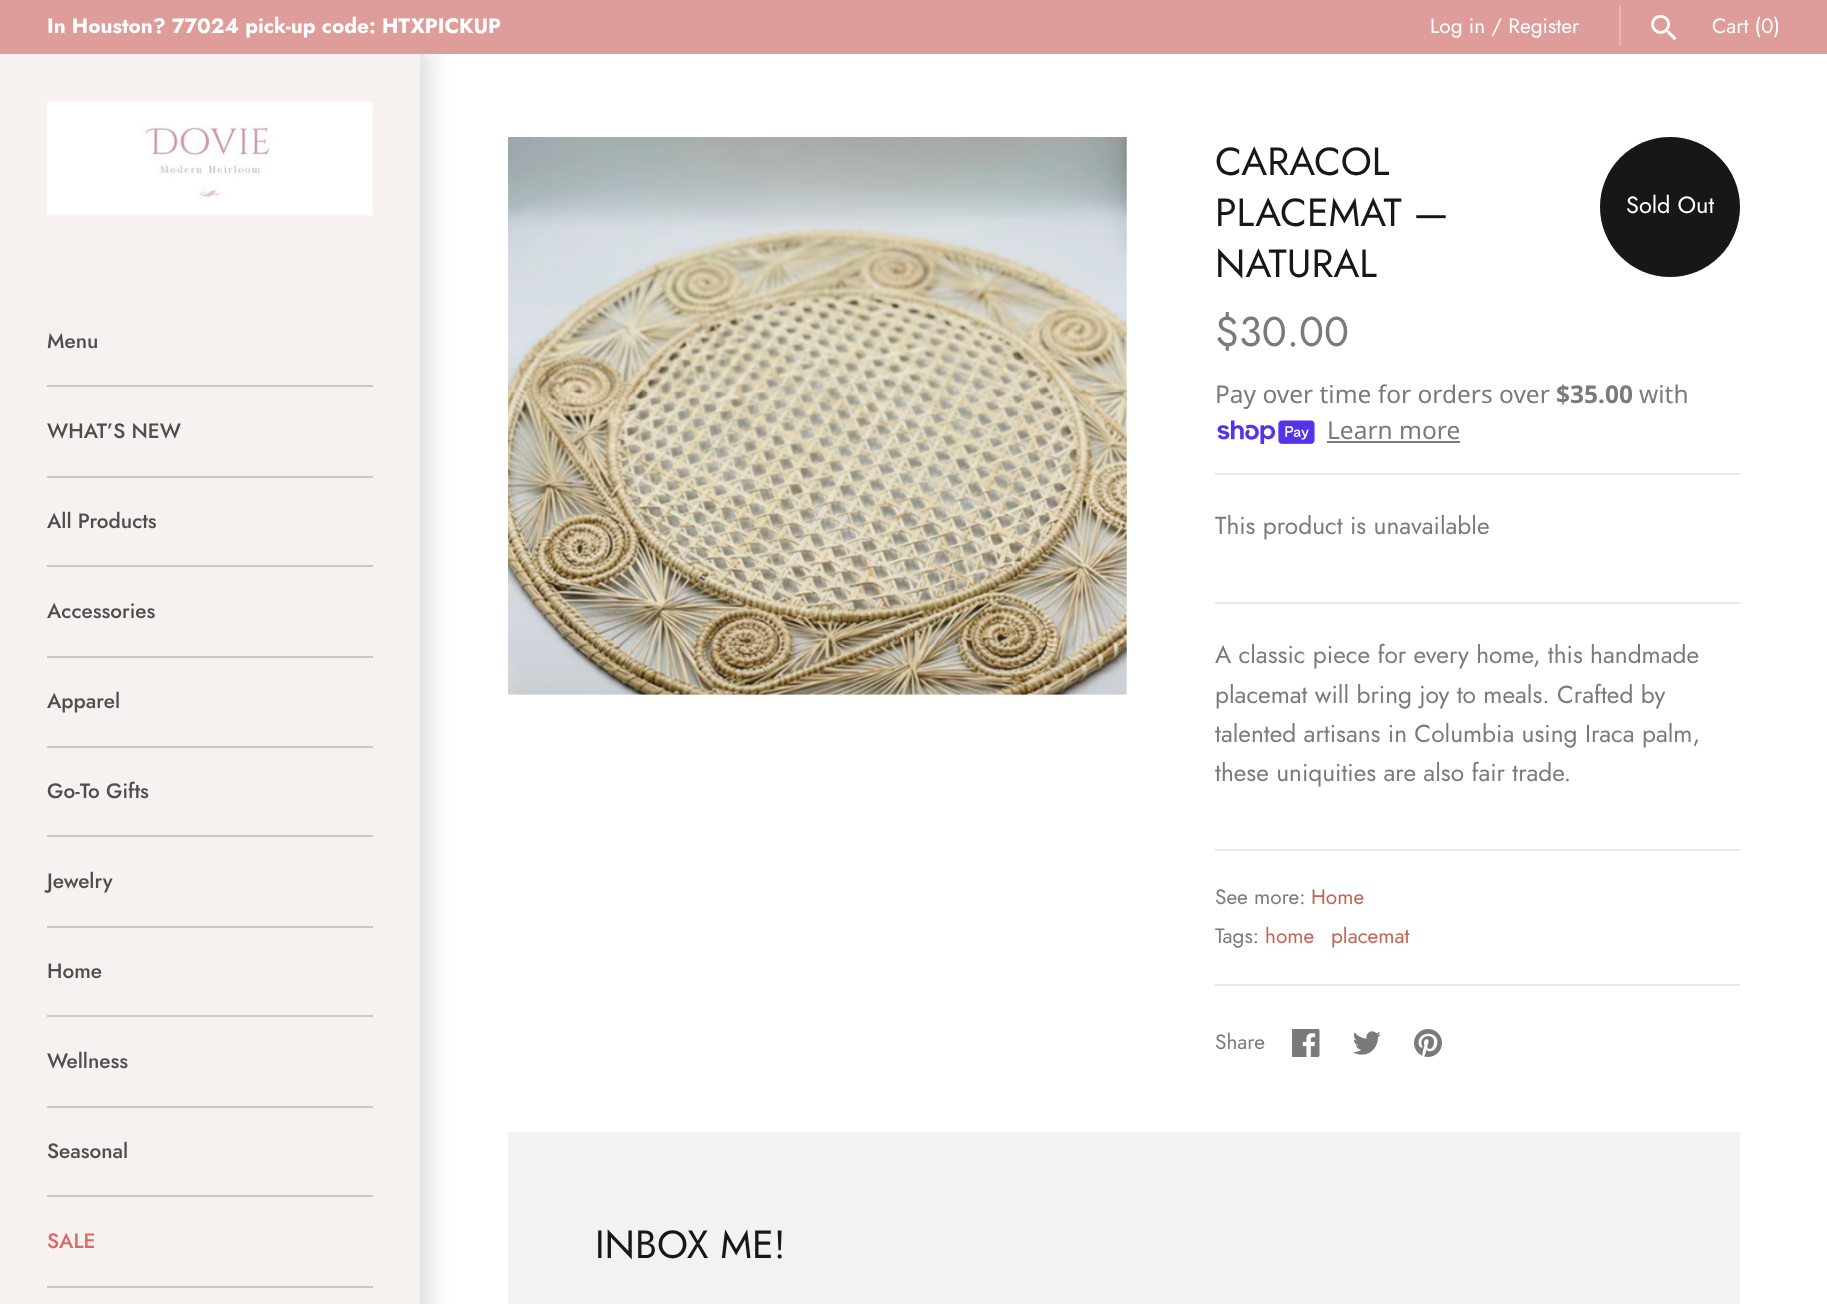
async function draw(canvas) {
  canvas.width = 1827
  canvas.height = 1304
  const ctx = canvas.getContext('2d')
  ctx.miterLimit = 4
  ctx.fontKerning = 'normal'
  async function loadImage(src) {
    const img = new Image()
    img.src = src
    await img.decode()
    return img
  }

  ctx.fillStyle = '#fff'
  ctx.fillRect(0, 0, 1827, 1304)
  ctx.fillStyle = '#00000026'
  ctx.filter = 'blur(13px)'
  ctx.beginPath()
  ctx.rect(-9, 46, 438, 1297)
  ctx.fill()
  ctx.filter = 'none'
  ctx.fillStyle = '#de9d9a'
  ctx.fillRect(0, 0, 1827, 54)
  ctx.font = 'bold 20.8px Jost'
  ctx.fillStyle = '#fff'
  ctx.fillText('In Houston? 77024 pick-up code: HTXPICKUP', 47, 33)
  ctx.font = '20.8px Jost'
  ctx.fillText('Log in / Register', 1430, 33)
  ctx.fillStyle = '#e6b6b3'
  ctx.fillRect(1619, 5, 2, 41)
  ctx.drawImage(await loadImage('image0.png'), 1651, 14, 26, 27)
  ctx.fillStyle = '#fff'
  ctx.fillText('Cart (0)', 1712, 33)
  ctx.fillStyle = '#f7f1f0'
  ctx.fillRect(0, 54, 420, 1250)
  ctx.drawImage(await loadImage('image1.png'), 47, 101, 326, 115)
  ctx.fillStyle = '#cdc8c8'
  ctx.fillRect(47, 385, 326, 2)
  ctx.font = '500 20.8px Jost'
  ctx.fillStyle = '#4e4e4e'
  ctx.fillText('Menu', 47, 348)
  ctx.fillStyle = '#cdc8c8'
  ctx.fillRect(47, 476, 326, 2)
  ctx.fillStyle = '#4e4e4e'
  ctx.fillText('WHAT’S NEW', 47, 438)
  ctx.fillStyle = '#cdc8c8'
  ctx.fillRect(47, 565, 326, 2)
  ctx.fillStyle = '#4e4e4e'
  ctx.fillText('All Products', 47, 528)
  ctx.fillStyle = '#cdc8c8'
  ctx.fillRect(47, 656, 326, 2)
  ctx.fillStyle = '#4e4e4e'
  ctx.fillText('Accessories', 47, 618)
  ctx.fillStyle = '#cdc8c8'
  ctx.fillRect(47, 746, 326, 2)
  ctx.fillStyle = '#4e4e4e'
  ctx.fillText('Apparel', 47, 708)
  ctx.fillStyle = '#cdc8c8'
  ctx.fillRect(47, 835, 326, 2)
  ctx.fillStyle = '#4e4e4e'
  ctx.fillText('Go-To Gifts', 47, 798)
  ctx.fillStyle = '#cdc8c8'
  ctx.fillRect(47, 926, 326, 2)
  ctx.fillStyle = '#4e4e4e'
  ctx.fillText('Jewelry', 47, 888)
  ctx.fillStyle = '#cdc8c8'
  ctx.fillRect(47, 1015, 326, 2)
  ctx.fillStyle = '#4e4e4e'
  ctx.fillText('Home', 47, 978)
  ctx.fillStyle = '#cdc8c8'
  ctx.fillRect(47, 1106, 326, 2)
  ctx.fillStyle = '#4e4e4e'
  ctx.fillText('Wellness', 47, 1068)
  ctx.fillStyle = '#cdc8c8'
  ctx.fillRect(47, 1195, 326, 2)
  ctx.fillStyle = '#4e4e4e'
  ctx.fillText('Seasonal', 47, 1158)
  ctx.fillStyle = '#cdc8c8'
  ctx.fillRect(47, 1286, 326, 2)
  ctx.fillStyle = '#d66'
  ctx.fillText('SALE', 47, 1248)
  ctx.drawImage(await loadImage('image2.png'), 508, 137, 619, 558)
  ctx.font = '39.25px Jost'
  ctx.fillStyle = '#171717'
  ctx.fillText('CARACOL', 1215, 175)
  ctx.fillText('PLACEMAT —', 1215, 226)
  ctx.fillText('NATURAL', 1215, 277)
  ctx.beginPath()
  ctx.arc(1670, 207, 70, 0, 2 * Math.PI)
  ctx.fill()
  ctx.font = '23.5px Jost'
  ctx.fillStyle = '#fff'
  ctx.fillText('Sold Out', 1626, 213)
  ctx.font = '41.5px Jost'
  ctx.fillStyle = '#787a7c'
  ctx.fillText('$30.00', 1215, 346)
  ctx.font = '24.5px Noto Sans'
  ctx.fillText('Pay over time for orders over', 1215, 403)
  ctx.font = 'bold 24.5px Noto Sans'
  ctx.fillText('$35.00', 1556, 403)
  ctx.font = '24.5px Noto Sans'
  ctx.fillText('with', 1639, 403)
  ctx.drawImage(await loadImage('image3.png'), 1217, 420, 98, 24)
  ctx.fillText('Learn more', 1327, 439)
  ctx.fillRect(1327, 441, 133, 2)
  ctx.fillStyle = '#e7e7e7'
  ctx.fillRect(1215, 473, 525, 2)
  ctx.font = '24.5px Jost'
  ctx.fillStyle = '#787a7c'
  ctx.fillText('This product is unavailable', 1215, 534)
  ctx.fillStyle = '#e7e7e7'
  ctx.fillRect(1215, 602, 525, 2)
  ctx.fillStyle = '#787a7c'
  ctx.fillText('A classic piece for every home, this handmade', 1215, 663)
  ctx.fillText('placemat will bring joy to meals. Crafted by', 1215, 703)
  ctx.fillText('talented artisans in Columbia using Iraca palm,', 1215, 742)
  ctx.fillText('these uniquities are also fair trade.', 1215, 781)
  ctx.fillStyle = '#e7e7e7'
  ctx.fillRect(1215, 849, 525, 2)
  ctx.font = '20.8px Jost'
  ctx.fillStyle = '#787a7c'
  ctx.fillText('See more:', 1215, 904)
  ctx.fillStyle = '#c16452'
  ctx.fillText('Home', 1311, 904)
  ctx.fillStyle = '#787a7c'
  ctx.fillText('Tags:', 1215, 943)
  ctx.fillStyle = '#c16452'
  ctx.fillText('home', 1265, 943)
  ctx.fillText('placemat', 1331, 943)
  ctx.fillStyle = '#e7e7e7'
  ctx.fillRect(1215, 984, 525, 2)
  ctx.fillStyle = '#787a7c'
  ctx.fillText('Share', 1215, 1049)
  ctx.drawImage(await loadImage('image4.png'), 1292, 1029, 28, 28)
  ctx.drawImage(await loadImage('image5.png'), 1353, 1031, 28, 24)
  ctx.drawImage(await loadImage('image6.png'), 1414, 1029, 28, 28)
  ctx.fillStyle = '#f2f2f2'
  ctx.fillRect(508, 1132, 1232, 172)
  ctx.font = '39.25px Jost'
  ctx.fillStyle = '#171717'
  ctx.fillText('INBOX ME!', 595, 1258)
}

draw(document.querySelector('canvas'))
